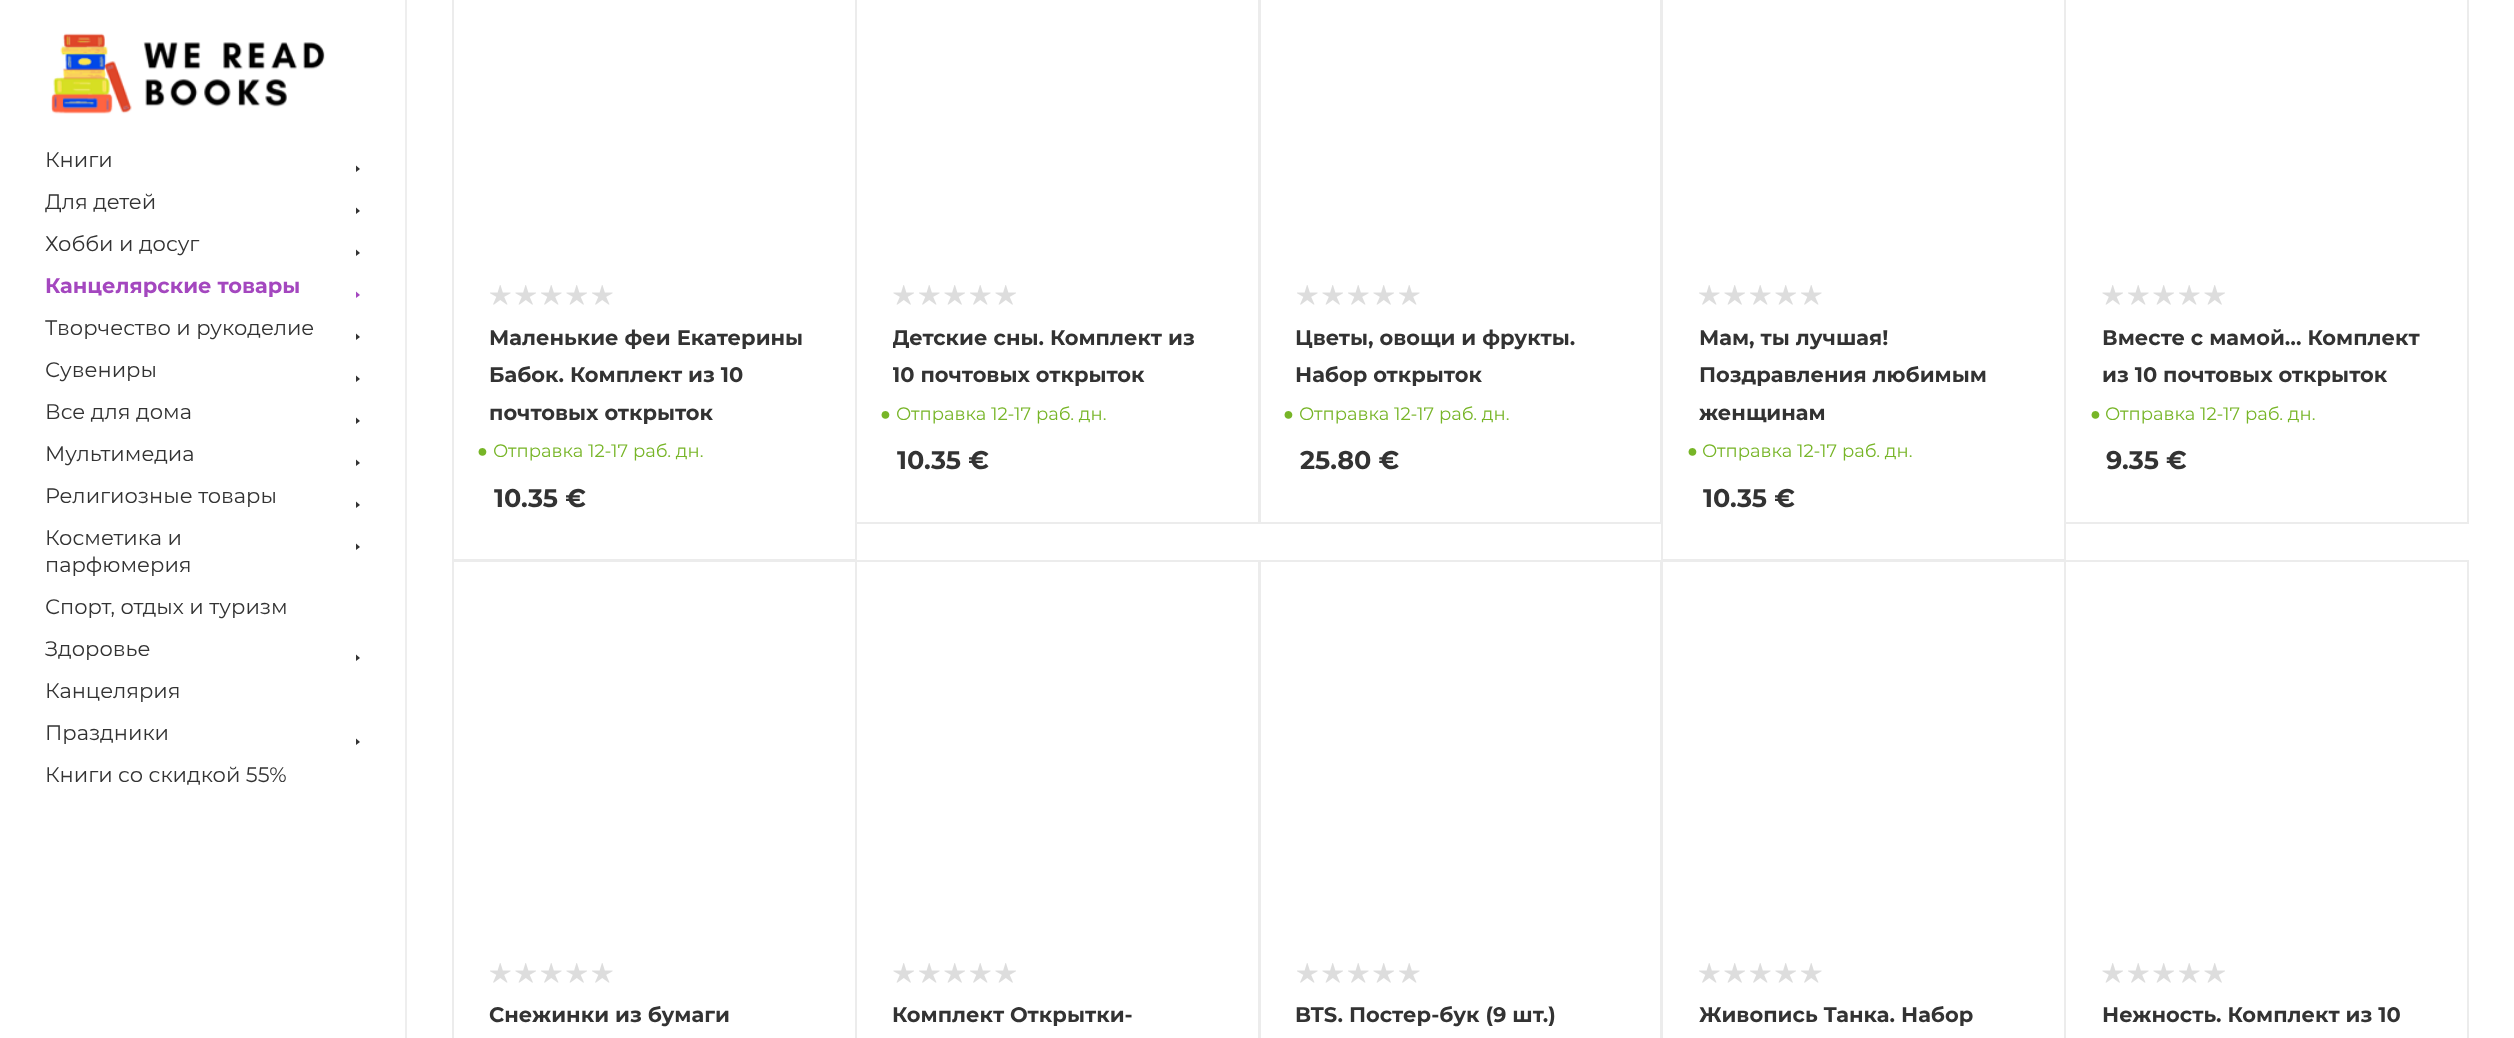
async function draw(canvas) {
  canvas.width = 2514
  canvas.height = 1038
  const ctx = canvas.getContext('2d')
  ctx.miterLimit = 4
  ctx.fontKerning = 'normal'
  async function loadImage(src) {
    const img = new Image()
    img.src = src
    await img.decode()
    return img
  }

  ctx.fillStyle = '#fff'
  ctx.fillRect(0, 0, 2514, 1038)
  ctx.fillStyle = '#eee'
  ctx.fillRect(405, 0, 2, 1038)
  ctx.drawImage(await loadImage('image0.png'), 51, 33, 274, 81)
  ctx.font = '21px Montserrat'
  ctx.fillStyle = '#333'
  ctx.fillText('Книги', 45, 167)
  ctx.save()
  ctx.beginPath()
  ctx.rect(356, 165, 5, 8)
  ctx.clip()
  ctx.beginPath()
  ctx.moveTo(355.5, 172.5)
  ctx.lineTo(355.5, 165)
  ctx.lineTo(360, 169)
  ctx.closePath()
  ctx.fill('evenodd')
  ctx.restore()
  ctx.fillText('Для детей', 45, 209)
  ctx.save()
  ctx.beginPath()
  ctx.rect(356, 207, 5, 8)
  ctx.clip()
  ctx.beginPath()
  ctx.moveTo(355.5, 214.5)
  ctx.lineTo(355.5, 207)
  ctx.lineTo(360, 211)
  ctx.closePath()
  ctx.fill('evenodd')
  ctx.restore()
  ctx.fillText('Хобби и досуг', 45, 251)
  ctx.save()
  ctx.beginPath()
  ctx.rect(356, 249, 5, 8)
  ctx.clip()
  ctx.beginPath()
  ctx.moveTo(355.5, 256.5)
  ctx.lineTo(355.5, 249)
  ctx.lineTo(360, 253)
  ctx.closePath()
  ctx.fill('evenodd')
  ctx.restore()
  ctx.font = 'bold 21px Montserrat'
  ctx.fillStyle = '#a447bf'
  ctx.fillText('Канцелярские товары', 45, 293)
  ctx.save()
  ctx.beginPath()
  ctx.rect(356, 291, 5, 8)
  ctx.clip()
  ctx.beginPath()
  ctx.moveTo(355.5, 298.5)
  ctx.lineTo(355.5, 291)
  ctx.lineTo(360, 295)
  ctx.closePath()
  ctx.fill('evenodd')
  ctx.restore()
  ctx.font = '21px Montserrat'
  ctx.fillStyle = '#333'
  ctx.fillText('Творчество и рукоделие', 45, 335)
  ctx.save()
  ctx.beginPath()
  ctx.rect(356, 333, 5, 8)
  ctx.clip()
  ctx.beginPath()
  ctx.moveTo(355.5, 340.5)
  ctx.lineTo(355.5, 333)
  ctx.lineTo(360, 337)
  ctx.closePath()
  ctx.fill('evenodd')
  ctx.restore()
  ctx.fillText('Сувениры', 45, 377)
  ctx.save()
  ctx.beginPath()
  ctx.rect(356, 375, 5, 8)
  ctx.clip()
  ctx.beginPath()
  ctx.moveTo(355.5, 382.5)
  ctx.lineTo(355.5, 375)
  ctx.lineTo(360, 379)
  ctx.closePath()
  ctx.fill('evenodd')
  ctx.restore()
  ctx.fillText('Все для дома', 45, 419)
  ctx.save()
  ctx.beginPath()
  ctx.rect(356, 417, 5, 8)
  ctx.clip()
  ctx.beginPath()
  ctx.moveTo(355.5, 424.5)
  ctx.lineTo(355.5, 417)
  ctx.lineTo(360, 421)
  ctx.closePath()
  ctx.fill('evenodd')
  ctx.restore()
  ctx.fillText('Мультимедиа', 45, 461)
  ctx.save()
  ctx.beginPath()
  ctx.rect(356, 459, 5, 8)
  ctx.clip()
  ctx.beginPath()
  ctx.moveTo(355.5, 466.5)
  ctx.lineTo(355.5, 459)
  ctx.lineTo(360, 463)
  ctx.closePath()
  ctx.fill('evenodd')
  ctx.restore()
  ctx.fillText('Религиозные товары', 45, 503)
  ctx.save()
  ctx.beginPath()
  ctx.rect(356, 501, 5, 8)
  ctx.clip()
  ctx.beginPath()
  ctx.moveTo(355.5, 508.5)
  ctx.lineTo(355.5, 501)
  ctx.lineTo(360, 505)
  ctx.closePath()
  ctx.fill('evenodd')
  ctx.restore()
  ctx.fillText('Косметика и', 45, 545)
  ctx.save()
  ctx.beginPath()
  ctx.rect(356, 543, 5, 8)
  ctx.clip()
  ctx.beginPath()
  ctx.moveTo(355.5, 550.5)
  ctx.lineTo(355.5, 543)
  ctx.lineTo(360, 547)
  ctx.closePath()
  ctx.fill('evenodd')
  ctx.restore()
  ctx.fillText('парфюмерия', 45, 572)
  ctx.fillText('Спорт, отдых и туризм', 45, 614)
  ctx.fillText('Здоровье', 45, 656)
  ctx.save()
  ctx.beginPath()
  ctx.rect(356, 654, 5, 8)
  ctx.clip()
  ctx.beginPath()
  ctx.moveTo(355.5, 661.5)
  ctx.lineTo(355.5, 654)
  ctx.lineTo(360, 658)
  ctx.closePath()
  ctx.fill('evenodd')
  ctx.restore()
  ctx.fillText('Канцелярия', 45, 698)
  ctx.fillText('Праздники', 45, 740)
  ctx.save()
  ctx.beginPath()
  ctx.rect(356, 738, 5, 8)
  ctx.clip()
  ctx.beginPath()
  ctx.moveTo(355.5, 745.5)
  ctx.lineTo(355.5, 738)
  ctx.lineTo(360, 742)
  ctx.closePath()
  ctx.fill('evenodd')
  ctx.restore()
  ctx.fillText('Книги со скидкой 55%', 45, 782)
  ctx.strokeStyle = '#ececec'
  ctx.lineWidth = 2
  ctx.strokeRect(453, -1, 403, 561)
  ctx.drawImage(await loadImage('image1.png'), 490, 285, 21, 20)
  ctx.drawImage(await loadImage('image2.png'), 515, 285, 21, 20)
  ctx.drawImage(await loadImage('image1.png'), 541, 285, 21, 20)
  ctx.drawImage(await loadImage('image2.png'), 566, 285, 21, 20)
  ctx.drawImage(await loadImage('image1.png'), 592, 285, 21, 20)
  ctx.font = 'bold 21px Montserrat'
  ctx.fillText('Маленькие феи Екатерины', 489, 345)
  ctx.fillText('Бабок. Комплект из 10', 489, 382)
  ctx.fillText('почтовых открыток', 489, 420)
  ctx.font = '18px Liberation Sans'
  ctx.fillStyle = '#77b527'
  ctx.fillText('●', 477, 457)
  ctx.font = '18px Montserrat'
  ctx.fillText('Отправка 12-17 раб. дн.', 493, 457)
  ctx.font = 'bold 25.5px Montserrat'
  ctx.fillStyle = '#333'
  ctx.fillText('10.35 €', 494, 507)
  ctx.strokeRect(856, -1, 403, 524)
  ctx.drawImage(await loadImage('image2.png'), 893, 285, 21, 20)
  ctx.drawImage(await loadImage('image1.png'), 919, 285, 21, 20)
  ctx.drawImage(await loadImage('image2.png'), 944, 285, 21, 20)
  ctx.drawImage(await loadImage('image1.png'), 970, 285, 21, 20)
  ctx.drawImage(await loadImage('image2.png'), 995, 285, 21, 20)
  ctx.save()
  ctx.beginPath()
  ctx.rect(893, 318, 330, 75)
  ctx.clip()
  ctx.font = 'bold 21px Montserrat'
  ctx.fillText('Детские сны. Комплект из', 892, 345)
  ctx.fillText('10 почтовых открыток', 892, 382)
  ctx.restore()
  ctx.font = '18px Liberation Sans'
  ctx.fillStyle = '#77b527'
  ctx.fillText('●', 880, 420)
  ctx.font = '18px Montserrat'
  ctx.fillText('Отправка 12-17 раб. дн.', 896, 420)
  ctx.font = 'bold 25.5px Montserrat'
  ctx.fillStyle = '#333'
  ctx.fillText('10.35 €', 897, 469)
  ctx.strokeRect(1260, -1, 401, 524)
  ctx.drawImage(await loadImage('image1.png'), 1297, 285, 21, 20)
  ctx.drawImage(await loadImage('image2.png'), 1322, 285, 21, 20)
  ctx.drawImage(await loadImage('image1.png'), 1348, 285, 21, 20)
  ctx.drawImage(await loadImage('image2.png'), 1373, 285, 21, 20)
  ctx.drawImage(await loadImage('image1.png'), 1399, 285, 21, 20)
  ctx.font = 'bold 21px Montserrat'
  ctx.fillText('Цветы, овощи и фрукты.', 1295, 345)
  ctx.fillText('Набор открыток', 1295, 382)
  ctx.font = '18px Liberation Sans'
  ctx.fillStyle = '#77b527'
  ctx.fillText('●', 1283, 420)
  ctx.font = '18px Montserrat'
  ctx.fillText('Отправка 12-17 раб. дн.', 1299, 420)
  ctx.font = 'bold 25.5px Montserrat'
  ctx.fillStyle = '#333'
  ctx.fillText('25.80 €', 1300, 469)
  ctx.strokeRect(1662, -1, 403, 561)
  ctx.drawImage(await loadImage('image1.png'), 1699, 285, 21, 20)
  ctx.drawImage(await loadImage('image2.png'), 1724, 285, 21, 20)
  ctx.drawImage(await loadImage('image1.png'), 1750, 285, 21, 20)
  ctx.drawImage(await loadImage('image2.png'), 1775, 285, 21, 20)
  ctx.drawImage(await loadImage('image1.png'), 1801, 285, 21, 20)
  ctx.font = 'bold 21px Montserrat'
  ctx.fillText('Мам, ты лучшая!', 1699, 345)
  ctx.fillText('Поздравления любимым', 1699, 382)
  ctx.fillText('женщинам', 1699, 420)
  ctx.font = '18px Liberation Sans'
  ctx.fillStyle = '#77b527'
  ctx.fillText('●', 1687, 457)
  ctx.font = '18px Montserrat'
  ctx.fillText('Отправка 12-17 раб. дн.', 1702, 457)
  ctx.font = 'bold 25.5px Montserrat'
  ctx.fillStyle = '#333'
  ctx.fillText('10.35 €', 1703, 507)
  ctx.strokeRect(2065, -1, 403, 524)
  ctx.drawImage(await loadImage('image2.png'), 2102, 285, 21, 20)
  ctx.drawImage(await loadImage('image1.png'), 2128, 285, 21, 20)
  ctx.drawImage(await loadImage('image2.png'), 2153, 285, 21, 20)
  ctx.drawImage(await loadImage('image1.png'), 2179, 285, 21, 20)
  ctx.drawImage(await loadImage('image2.png'), 2204, 285, 21, 20)
  ctx.font = 'bold 21px Montserrat'
  ctx.fillText('Вместе с мамой… Комплект', 2102, 345)
  ctx.fillText('из 10 почтовых открыток', 2102, 382)
  ctx.font = '18px Liberation Sans'
  ctx.fillStyle = '#77b527'
  ctx.fillText('●', 2090, 420)
  ctx.font = '18px Montserrat'
  ctx.fillText('Отправка 12-17 раб. дн.', 2105, 420)
  ctx.font = 'bold 25.5px Montserrat'
  ctx.fillStyle = '#333'
  ctx.fillText('9.35 €', 2106, 469)
  ctx.strokeRect(453, 561, 403, 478)
  ctx.drawImage(await loadImage('image1.png'), 490, 963, 21, 20)
  ctx.drawImage(await loadImage('image2.png'), 515, 963, 21, 20)
  ctx.drawImage(await loadImage('image1.png'), 541, 963, 21, 20)
  ctx.drawImage(await loadImage('image2.png'), 566, 963, 21, 20)
  ctx.drawImage(await loadImage('image1.png'), 592, 963, 21, 20)
  ctx.font = 'bold 21px Montserrat'
  ctx.fillText('Снежинки из бумаги', 489, 1022)
  ctx.strokeRect(856, 561, 403, 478)
  ctx.drawImage(await loadImage('image2.png'), 893, 963, 21, 20)
  ctx.drawImage(await loadImage('image1.png'), 919, 963, 21, 20)
  ctx.drawImage(await loadImage('image2.png'), 944, 963, 21, 20)
  ctx.drawImage(await loadImage('image1.png'), 970, 963, 21, 20)
  ctx.drawImage(await loadImage('image2.png'), 995, 963, 21, 20)
  ctx.fillText('Комплект Открытки-', 892, 1022)
  ctx.strokeRect(1260, 561, 401, 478)
  ctx.drawImage(await loadImage('image1.png'), 1297, 963, 21, 20)
  ctx.drawImage(await loadImage('image2.png'), 1322, 963, 21, 20)
  ctx.drawImage(await loadImage('image1.png'), 1348, 963, 21, 20)
  ctx.drawImage(await loadImage('image2.png'), 1373, 963, 21, 20)
  ctx.drawImage(await loadImage('image1.png'), 1399, 963, 21, 20)
  ctx.fillText('BTS. Постер-бук (9 шт.)', 1295, 1022)
  ctx.strokeRect(1662, 561, 403, 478)
  ctx.drawImage(await loadImage('image1.png'), 1699, 963, 21, 20)
  ctx.drawImage(await loadImage('image2.png'), 1724, 963, 21, 20)
  ctx.drawImage(await loadImage('image1.png'), 1750, 963, 21, 20)
  ctx.drawImage(await loadImage('image2.png'), 1775, 963, 21, 20)
  ctx.drawImage(await loadImage('image1.png'), 1801, 963, 21, 20)
  ctx.fillText('Живопись Танка. Набор', 1699, 1022)
  ctx.strokeRect(2065, 561, 403, 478)
  ctx.drawImage(await loadImage('image2.png'), 2102, 963, 21, 20)
  ctx.drawImage(await loadImage('image1.png'), 2128, 963, 21, 20)
  ctx.drawImage(await loadImage('image2.png'), 2153, 963, 21, 20)
  ctx.drawImage(await loadImage('image1.png'), 2179, 963, 21, 20)
  ctx.drawImage(await loadImage('image2.png'), 2204, 963, 21, 20)
  ctx.fillText('Нежность. Комплект из 10', 2102, 1022)
}

draw(document.querySelector('canvas'))
